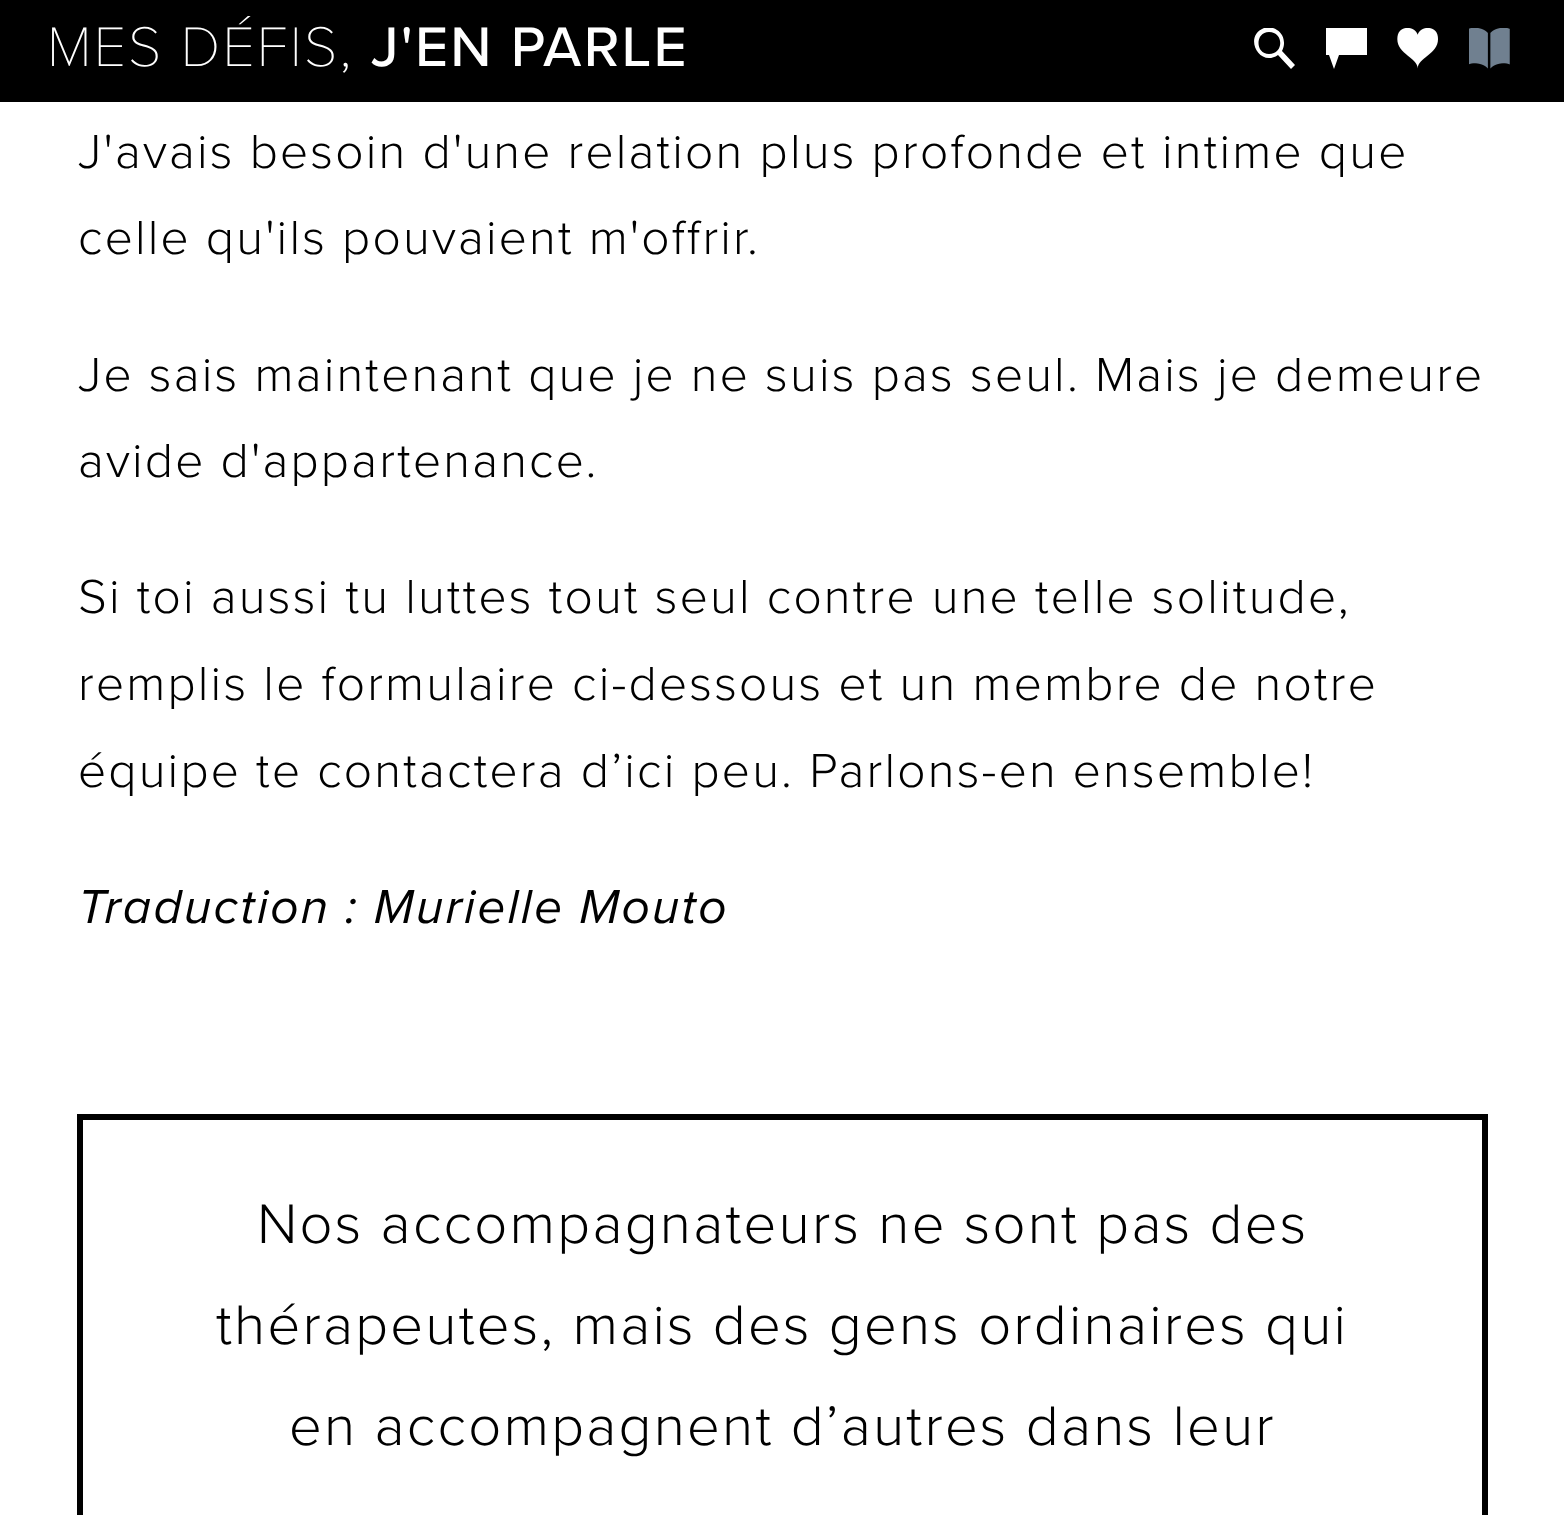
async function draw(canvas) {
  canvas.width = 1564
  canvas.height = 1515
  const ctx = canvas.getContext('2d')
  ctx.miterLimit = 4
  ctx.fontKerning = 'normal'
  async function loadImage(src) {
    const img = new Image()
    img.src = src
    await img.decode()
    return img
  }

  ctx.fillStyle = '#fff'
  ctx.fillRect(0, 0, 1564, 1515)
  ctx.fillStyle = '#000'
  ctx.fillRect(0, 0, 1564, 102)
  ctx.letterSpacing = '2.2px'
  ctx.font = '100 57.75px Proxima Nova'
  ctx.fillStyle = '#fff'
  ctx.fillText('MES DÉFIS,', 47, 66)
  ctx.font = '500 57.75px Proxima Nova'
  ctx.fillText('J\'EN PARLE', 371, 66)
  ctx.save()
  ctx.beginPath()
  ctx.rect(1254, 28, 41, 41)
  ctx.clip()
  ctx.beginPath()
  ctx.moveTo(1295, 65)
  ctx.lineTo(1282, 51)
  ctx.bezierCurveTo(1286, 44, 1284, 34, 1277, 30)
  ctx.bezierCurveTo(1273, 27, 1268, 27, 1264, 28)
  ctx.bezierCurveTo(1243, 36, 1259, 68, 1278, 55)
  ctx.lineTo(1291, 69)
  ctx.closePath()
  ctx.moveTo(1269, 54)
  ctx.bezierCurveTo(1255, 54, 1255, 32, 1269, 32)
  ctx.bezierCurveTo(1284, 32, 1284, 54, 1269, 54)
  ctx.closePath()
  ctx.fill()
  ctx.restore()
  ctx.beginPath()
  ctx.moveTo(1367, 28)
  ctx.lineTo(1326, 28)
  ctx.lineTo(1326, 55)
  ctx.lineTo(1329, 55)
  ctx.lineTo(1334, 69)
  ctx.lineTo(1339, 55)
  ctx.lineTo(1367, 55)
  ctx.closePath()
  ctx.fill()
  ctx.drawImage(await loadImage('image0.png'), 1397, 28, 41, 41)
  ctx.drawImage(await loadImage('image1.png'), 1469, 28, 41, 41)
  ctx.font = '300 49.5px Proxima Nova'
  ctx.fillStyle = '#000'
  ctx.fillText('J\'avais besoin d\'une relation plus profonde et intime que', 78, 168)
  ctx.fillText('celle qu\'ils pouvaient m\'offrir.', 78, 254)
  ctx.fillText('Je sais maintenant que je ne suis pas seul. Mais je demeure', 78, 391)
  ctx.fillText('avide d\'appartenance.', 78, 477)
  ctx.fillText('Si toi aussi tu luttes tout seul contre une telle solitude,', 78, 613)
  ctx.fillText('remplis le formulaire ci-dessous et un membre de notre', 78, 700)
  ctx.fillText('équipe te contactera d’ici peu. Parlons-en ensemble!', 78, 787)
  ctx.font = 'italic 49.5px Proxima Nova'
  ctx.fillText('Traduction : Murielle Mouto', 78, 923)
  ctx.strokeStyle = '#000'
  ctx.lineWidth = 6
  ctx.strokeRect(80, 1117, 1405, 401)
  ctx.font = '300 57.75px Proxima Nova'
  ctx.fillText('Nos accompagnateurs ne sont pas des', 257, 1243)
  ctx.fillText('thérapeutes, mais des gens ordinaires qui', 216, 1344)
  ctx.fillText('en accompagnent d’autres dans leur', 289, 1445)
}

draw(document.querySelector('canvas'))
